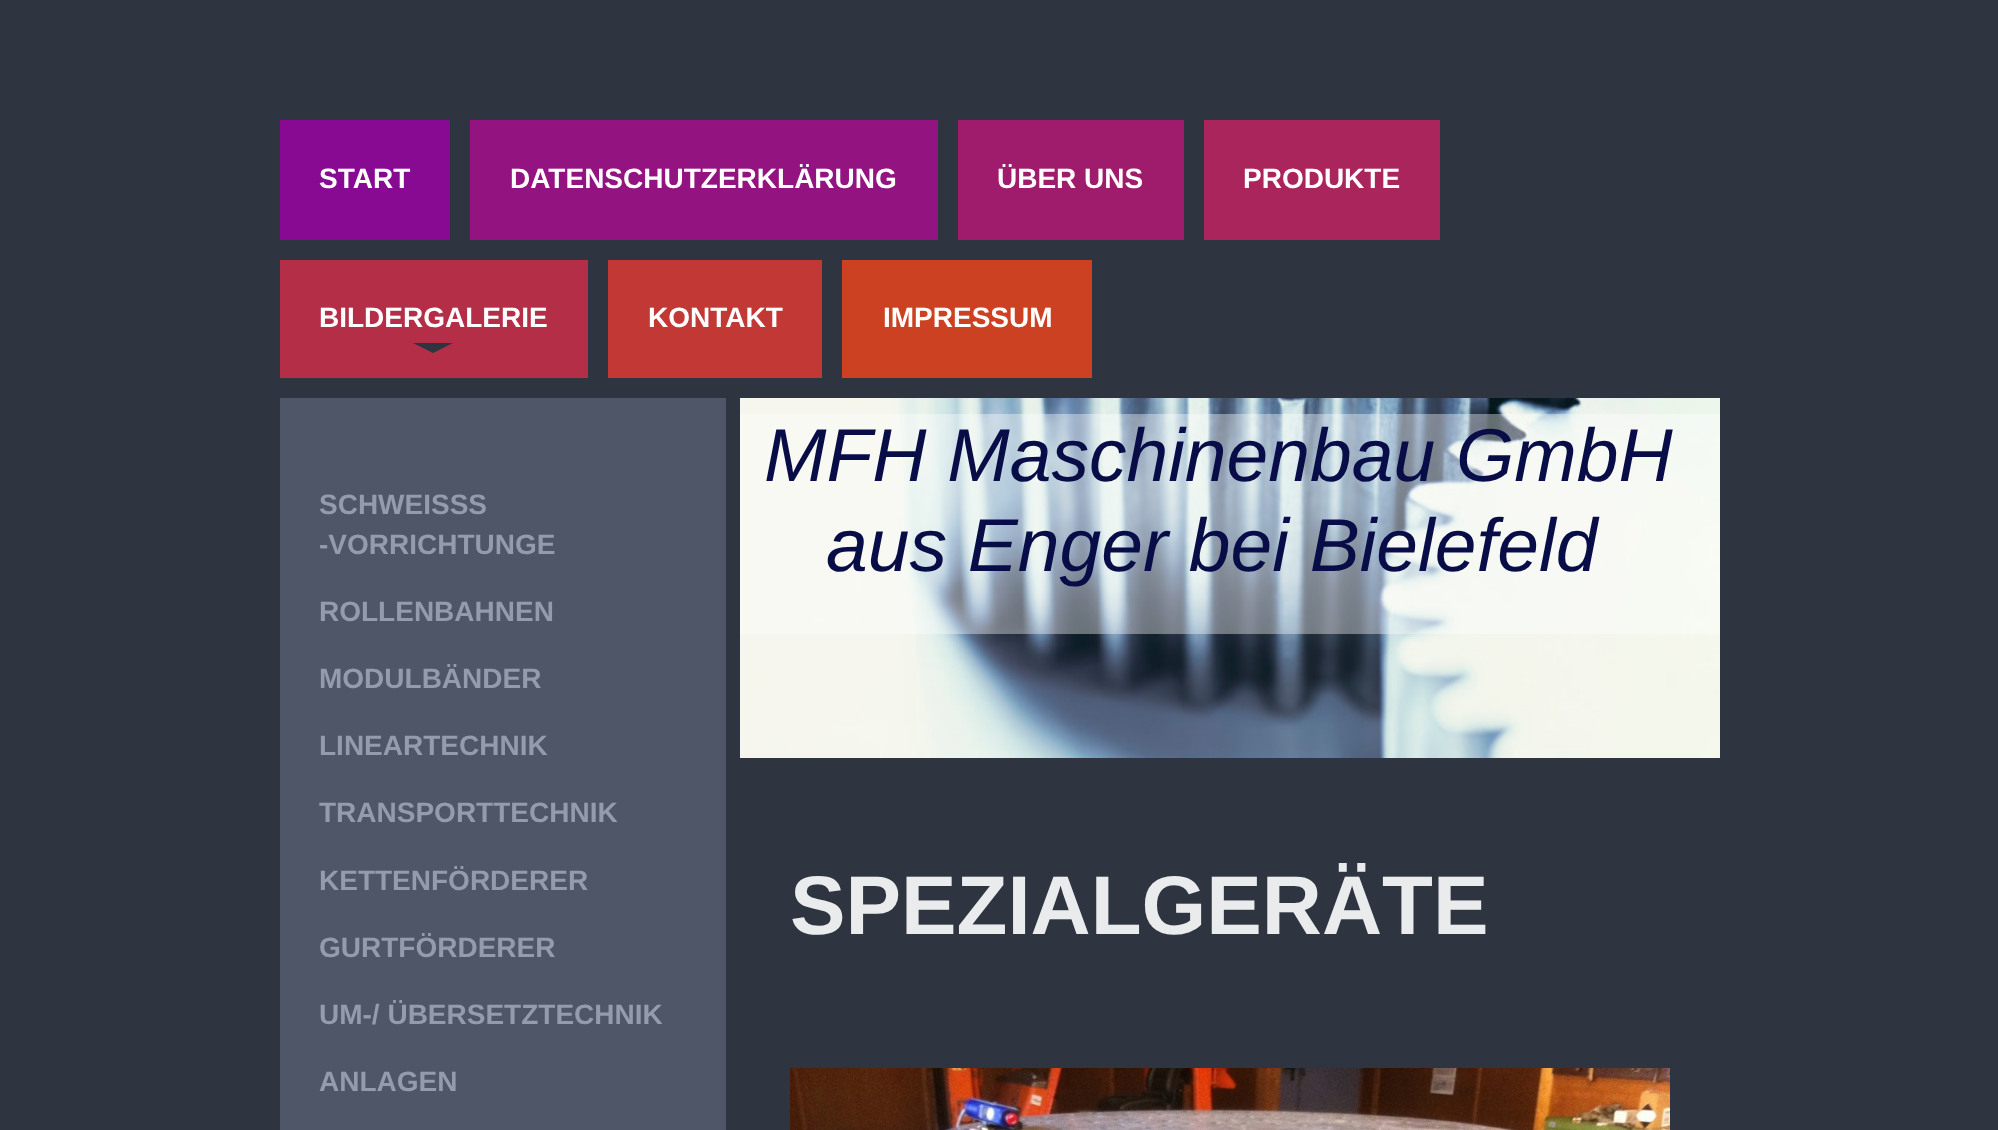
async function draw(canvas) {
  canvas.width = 1998
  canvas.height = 1130
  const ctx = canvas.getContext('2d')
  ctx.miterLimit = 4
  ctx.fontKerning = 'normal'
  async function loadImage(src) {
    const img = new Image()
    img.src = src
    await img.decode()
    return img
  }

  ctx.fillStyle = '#2e3440'
  ctx.fillRect(0, 0, 1998, 1130)
  ctx.fillStyle = '#880a93'
  ctx.fillRect(280, 120, 170, 120)
  ctx.font = 'bold 28px Liberation Sans'
  ctx.fillStyle = '#fff'
  ctx.fillText('START', 319, 188)
  ctx.fillStyle = '#931380'
  ctx.fillRect(470, 120, 468, 120)
  ctx.fillStyle = '#fff'
  ctx.fillText('DATENSCHUTZERKLÄRUNG', 510, 188)
  ctx.fillStyle = '#9f1c6d'
  ctx.fillRect(958, 120, 226, 120)
  ctx.fillStyle = '#fff'
  ctx.fillText('ÜBER UNS', 997, 188)
  ctx.fillStyle = '#aa255b'
  ctx.fillRect(1204, 120, 236, 120)
  ctx.fillStyle = '#fff'
  ctx.fillText('PRODUKTE', 1243, 188)
  ctx.fillStyle = '#b52e48'
  ctx.fillRect(280, 260, 308, 118)
  ctx.fillStyle = '#fff'
  ctx.fillText('BILDERGALERIE', 319, 327)
  ctx.fillStyle = '#2e3440'
  ctx.beginPath()
  ctx.moveTo(413, 343)
  ctx.lineTo(453, 343)
  ctx.lineTo(433, 353)
  ctx.closePath()
  ctx.fill()
  ctx.fillStyle = '#c13835'
  ctx.fillRect(608, 260, 214, 118)
  ctx.fillStyle = '#fff'
  ctx.fillText('KONTAKT', 648, 327)
  ctx.fillStyle = '#cc4122'
  ctx.fillRect(842, 260, 250, 118)
  ctx.fillStyle = '#fff'
  ctx.fillText('IMPRESSUM', 883, 327)
  ctx.fillStyle = '#4e5667'
  ctx.fillRect(280, 398, 446, 732)
  ctx.drawImage(await loadImage('image0.png'), 740, 398, 980, 360)
  ctx.fillStyle = '#ffffff61'
  ctx.fillRect(740, 414, 980, 220)
  ctx.font = 'italic 75px Liberation Sans'
  ctx.fillStyle = '#080c47'
  ctx.fillText('MFH Maschinenbau GmbH', 764, 481)
  ctx.fillText('aus Enger bei Bielefeld', 826, 571)
  ctx.font = 'bold 83.25px Liberation Sans'
  ctx.fillStyle = '#eaebec'
  ctx.fillText('SPEZIALGERÄTE', 790, 934)
  ctx.drawImage(await loadImage('image1.png'), 790, 1068, 880, 62)
  ctx.font = 'bold 28px Liberation Sans'
  ctx.fillStyle = '#939bac'
  ctx.fillText('SCHWEISSS', 319, 514)
  ctx.fillText('-VORRICHTUNGE', 319, 554)
  ctx.fillText('ROLLENBAHNEN', 319, 621)
  ctx.fillText('MODULBÄNDER', 319, 688)
  ctx.fillText('LINEARTECHNIK', 319, 755)
  ctx.fillText('TRANSPORTTECHNIK', 319, 822)
  ctx.fillText('KETTENFÖRDERER', 319, 890)
  ctx.fillText('GURTFÖRDERER', 319, 957)
  ctx.fillText('UM-/ ÜBERSETZTECHNIK', 319, 1024)
  ctx.fillText('ANLAGEN', 319, 1091)
}

draw(document.querySelector('canvas'))
